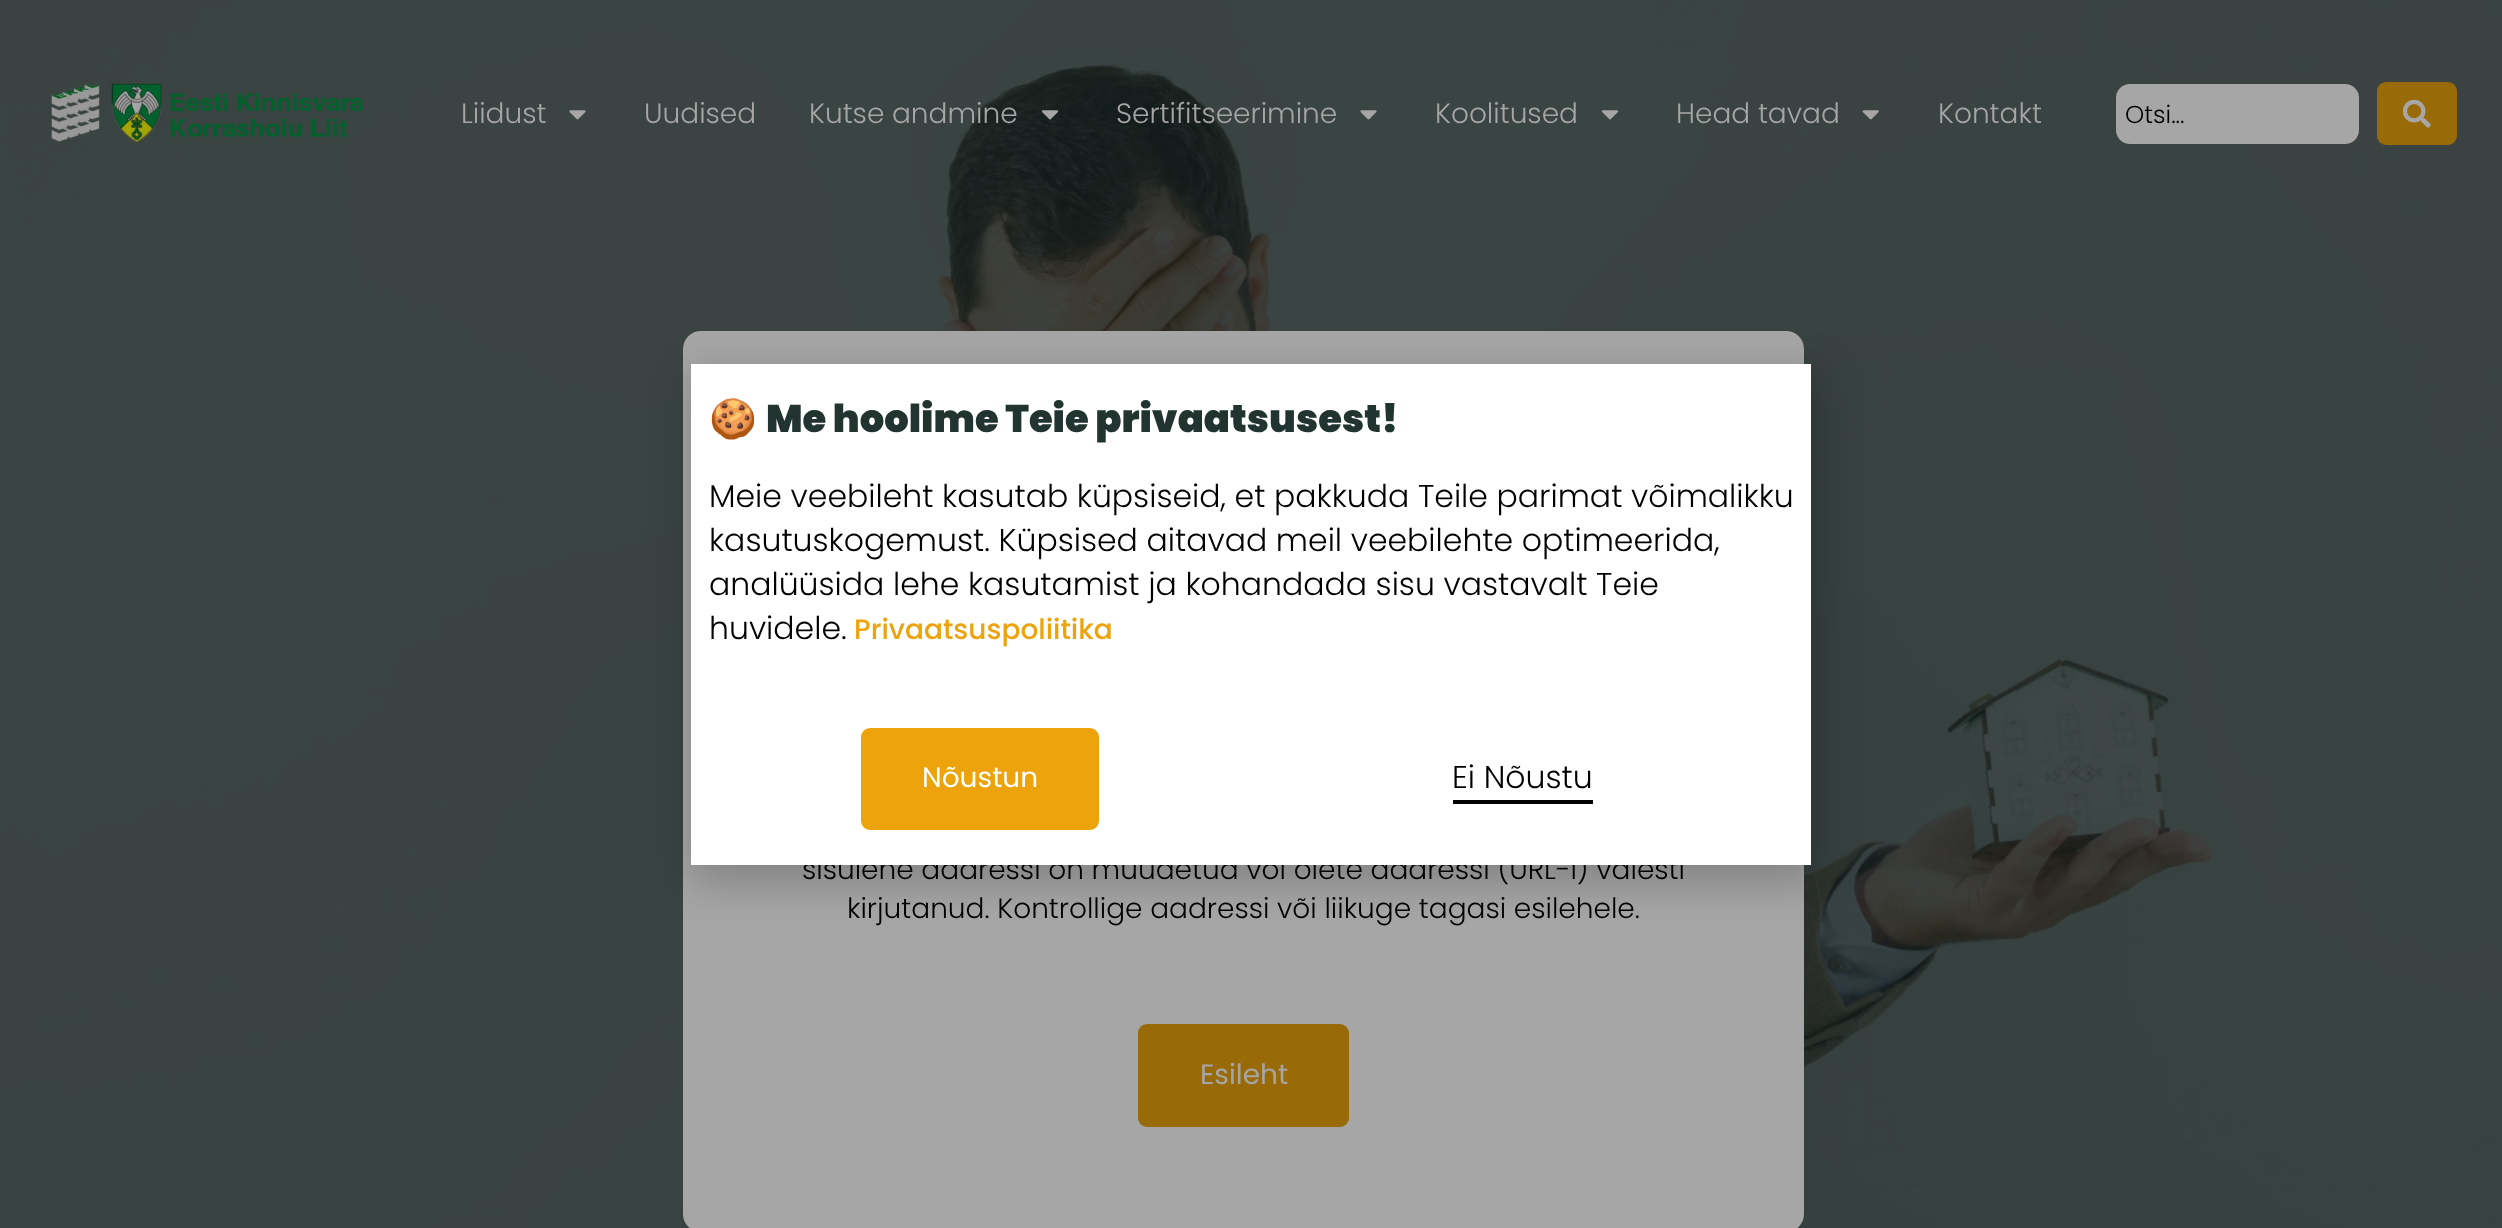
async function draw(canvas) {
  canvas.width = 2502
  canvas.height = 1228
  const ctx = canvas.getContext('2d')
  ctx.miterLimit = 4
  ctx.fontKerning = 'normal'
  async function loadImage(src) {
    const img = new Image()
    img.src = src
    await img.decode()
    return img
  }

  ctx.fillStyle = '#fff'
  ctx.fillRect(0, 0, 2502, 1228)
  ctx.drawImage(await loadImage('image7.png'), 0, 0, 2502, 1228)
  ctx.drawImage(await loadImage('image0.png'), 51, 83, 313, 59)
  ctx.font = '300 28px Poppins'
  ctx.fillStyle = '#a6a6a6'
  ctx.fillText('Liidust', 461, 123)
  ctx.drawImage(await loadImage('image1.png'), 569, 110, 17, 10)
  ctx.fillText('Uudised', 644, 123)
  ctx.fillText('Kutse andmine', 809, 123)
  ctx.drawImage(await loadImage('image2.png'), 1041, 110, 18, 10)
  ctx.fillText('Sertifitseerimine', 1116, 123)
  ctx.drawImage(await loadImage('image3.png'), 1360, 110, 17, 10)
  ctx.fillText('Koolitused', 1435, 123)
  ctx.drawImage(await loadImage('image4.png'), 1601, 110, 18, 10)
  ctx.fillText('Head tavad', 1676, 123)
  ctx.drawImage(await loadImage('image5.png'), 1862, 110, 17, 10)
  ctx.fillText('Kontakt', 1938, 123)
  ctx.beginPath()
  ctx.roundRect(2116, 84, 243, 60, 14)
  ctx.fill()
  ctx.font = '300 24.5px Poppins'
  ctx.fillStyle = '#000'
  ctx.fillText('Otsi...', 2125, 123)
  ctx.fillStyle = '#996a08'
  ctx.beginPath()
  ctx.roundRect(2377, 82, 80, 63, 9)
  ctx.fill()
  ctx.drawImage(await loadImage('image6.png'), 2403, 100, 28, 28)
  ctx.fillStyle = '#a6a6a6'
  ctx.beginPath()
  ctx.roundRect(683, 331, 1121, 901, 18)
  ctx.fill()
  ctx.fillStyle = '#00000033'
  ctx.filter = 'blur(20px)'
  ctx.beginPath()
  ctx.rect(690, 373, 1130, 511)
  ctx.fill()
  ctx.filter = 'none'
  ctx.font = '300 28px Poppins'
  ctx.fillStyle = '#000'
  ctx.fillText('sisulehe aadressi on muudetud või olete aadressi (URL-i) valesti', 802, 879)
  ctx.fillStyle = '#fff'
  ctx.fillRect(691, 364, 1120, 501)
  ctx.font = 'bold 38.5px Noto Color Emoji'
  ctx.fillStyle = '#213430'
  ctx.fillText('🍪', 709, 432)
  ctx.font = '900 38.5px Poppins'
  ctx.fillText('Me hoolime Teie privaatsusest!', 766, 432)
  ctx.font = '300 31.5px Poppins'
  ctx.fillStyle = '#000'
  ctx.fillText('Meie veebileht kasutab küpsiseid, et pakkuda Teile parimat võimalikku', 709, 507)
  ctx.fillText('kasutuskogemust. Küpsised aitavad meil veebilehte optimeerida,', 709, 551)
  ctx.fillText('analüüsida lehe kasutamist ja kohandada sisu vastavalt Teie', 709, 595)
  ctx.fillText('huvidele.', 709, 639)
  ctx.font = '500 28px Poppins'
  ctx.fillStyle = '#eca30c'
  ctx.fillText('Privaatsuspoliitika', 854, 639)
  ctx.beginPath()
  ctx.roundRect(861, 728, 238, 102, 9)
  ctx.fill()
  ctx.font = '28px Poppins'
  ctx.fillStyle = '#fff'
  ctx.fillText('Nõustun', 922, 787)
  ctx.fillStyle = '#000'
  ctx.fillRect(1453, 800, 140, 4)
  ctx.font = '300 31.5px Poppins'
  ctx.fillText('Ei Nõustu', 1452, 788)
  ctx.font = '300 28px Poppins'
  ctx.fillText('kirjutanud. Kontrollige aadressi või liikuge tagasi esilehele.', 847, 918)
  ctx.fillStyle = '#996a08'
  ctx.beginPath()
  ctx.roundRect(1138, 1024, 211, 103, 9)
  ctx.fill()
  ctx.font = '28px Poppins'
  ctx.fillStyle = '#a6a6a6'
  ctx.fillText('Esileht', 1200, 1084)
}

draw(document.querySelector('canvas'))
